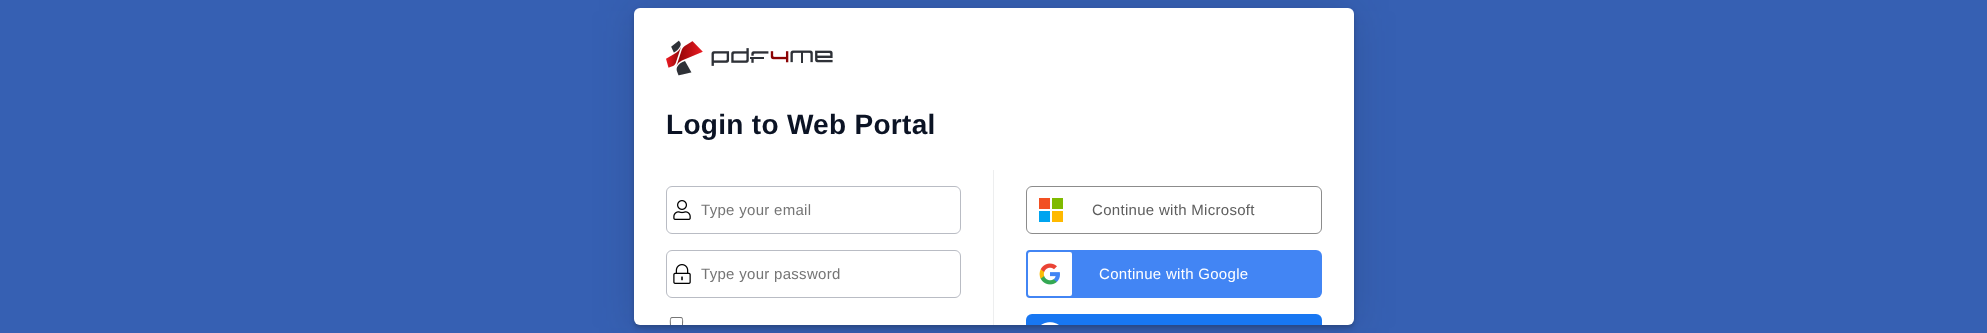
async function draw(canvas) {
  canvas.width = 1987
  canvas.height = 333
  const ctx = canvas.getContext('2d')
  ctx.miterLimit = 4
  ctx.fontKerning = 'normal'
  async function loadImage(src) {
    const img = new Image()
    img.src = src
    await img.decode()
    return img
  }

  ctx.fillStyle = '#3660b3'
  ctx.fillRect(0, 0, 1987, 333)
  ctx.fillStyle = '#1621394d'
  ctx.filter = 'blur(2px)'
  ctx.beginPath()
  ctx.roundRect(634, 11, 720, 317, 6)
  ctx.fill()
  ctx.filter = 'none'
  ctx.fillStyle = '#1621392e'
  ctx.filter = 'blur(20px)'
  ctx.beginPath()
  ctx.roundRect(634, 11, 720, 317, 6)
  ctx.fill()
  ctx.filter = 'none'
  ctx.fillStyle = '#fff'
  ctx.beginPath()
  ctx.roundRect(634, 8, 720, 317, 6)
  ctx.fill()
  ctx.drawImage(await loadImage('image0.png'), 666, 40, 167, 36)
  ctx.letterSpacing = '0.3px'
  ctx.font = 'bold 28px Liberation Sans'
  ctx.fillStyle = '#0b1324'
  ctx.fillText('Login to Web Portal', 666, 134)
  ctx.beginPath()
  ctx.roundRect(666.5, 186.5, 294, 47, 5.5)
  ctx.strokeStyle = '#b9bcc4'
  ctx.stroke()
  ctx.drawImage(await loadImage('image1.png'), 673, 200, 18, 20)
  ctx.save()
  ctx.beginPath()
  ctx.rect(701, 201, 247, 17)
  ctx.clip()
  ctx.font = '15px Liberation Sans'
  ctx.fillStyle = '#757575'
  ctx.fillText('Type your email', 701, 215)
  ctx.restore()
  ctx.beginPath()
  ctx.roundRect(666.5, 250.5, 294, 47, 5.5)
  ctx.stroke()
  ctx.drawImage(await loadImage('image2.png'), 673, 264, 18, 20)
  ctx.save()
  ctx.beginPath()
  ctx.rect(701, 265, 247, 17)
  ctx.clip()
  ctx.font = '15px Liberation Sans'
  ctx.fillStyle = '#757575'
  ctx.fillText('Type your password', 701, 279)
  ctx.restore()
  ctx.fillStyle = '#767676'
  ctx.beginPath()
  ctx.moveTo(672, 317)
  ctx.bezierCurveTo(669, 317, 670, 323, 670, 325)
  ctx.lineTo(671, 325)
  ctx.bezierCurveTo(671, 317.5, 669, 318, 676.5, 318)
  ctx.bezierCurveTo(684, 318, 682, 317.5, 682, 325)
  ctx.lineTo(683, 325)
  ctx.bezierCurveTo(683, 323, 684, 317, 681, 317)
  ctx.closePath()
  ctx.fill()
  ctx.fillStyle = '#edeeef'
  ctx.fillRect(993, 170, 1, 155)
  ctx.beginPath()
  ctx.roundRect(1026.5, 186.5, 295, 47, 5.5)
  ctx.strokeStyle = '#8c8c8c'
  ctx.stroke()
  ctx.fillStyle = '#f25022'
  ctx.fillRect(1039, 198, 11, 11)
  ctx.fillStyle = '#00a4ef'
  ctx.fillRect(1039, 211, 11, 11)
  ctx.fillStyle = '#7fba00'
  ctx.fillRect(1052, 198, 11, 11)
  ctx.fillStyle = '#ffb900'
  ctx.fillRect(1052, 211, 11, 11)
  ctx.font = '15px Liberation Sans'
  ctx.fillStyle = '#5e5e5e'
  ctx.fillText('Continue with Microsoft', 1092, 215)
  ctx.fillStyle = '#4285f4'
  ctx.beginPath()
  ctx.roundRect(1026, 250, 296, 48, 6)
  ctx.fill()
  ctx.fillStyle = '#fff'
  ctx.beginPath()
  ctx.roundRect(1027, 251, 46, 46, 3)
  ctx.fill()
  ctx.strokeStyle = '#4285f4'
  ctx.lineWidth = 2
  ctx.stroke()
  ctx.drawImage(await loadImage('image3.png'), 1039, 263, 21, 22)
  ctx.fillText('Continue with Google', 1099, 279)
  ctx.fillStyle = '#1877f2'
  ctx.beginPath()
  ctx.roundRect(1026, 314, 296, 11, [6, 6, 0, 0])
  ctx.fill()
  ctx.drawImage(await loadImage('image4.png'), 1041, 322, 18, 3)
}

draw(document.querySelector('canvas'))
